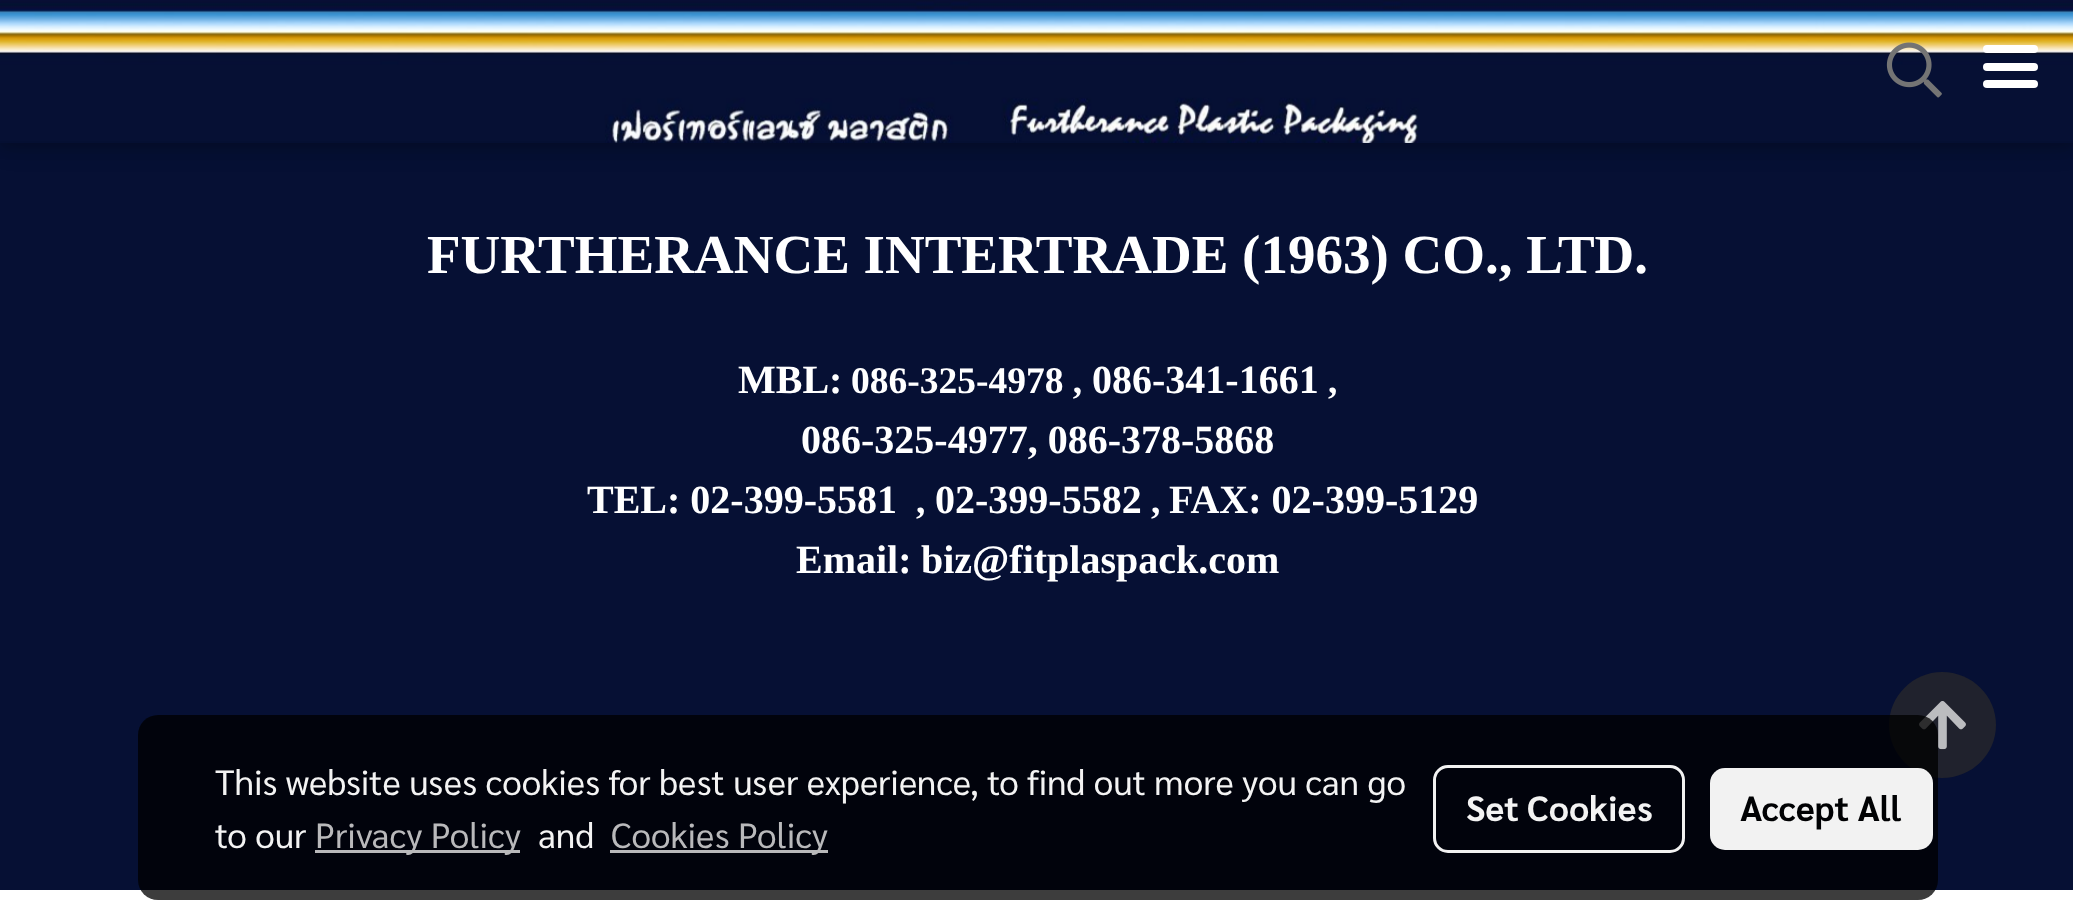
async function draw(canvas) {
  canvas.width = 2073
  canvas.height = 918
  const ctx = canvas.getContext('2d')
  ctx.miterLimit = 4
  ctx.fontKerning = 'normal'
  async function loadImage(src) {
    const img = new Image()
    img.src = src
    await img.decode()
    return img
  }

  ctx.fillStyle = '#fff'
  ctx.fillRect(0, 0, 2073, 918)
  ctx.fillStyle = '#061034'
  ctx.fillRect(0, 141, 2073, 749)
  ctx.fillStyle = '#0000001f'
  ctx.filter = 'blur(12.5px)'
  ctx.beginPath()
  ctx.rect(0, 5, 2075, 143)
  ctx.fill()
  ctx.filter = 'none'
  ctx.fillStyle = '#00000029'
  ctx.filter = 'blur(6px)'
  ctx.beginPath()
  ctx.rect(0, 5, 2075, 143)
  ctx.fill()
  ctx.filter = 'none'
  ctx.drawImage(await loadImage('image0.png'), 0, 0, 2073, 143)
  ctx.drawImage(await loadImage('image1.png'), 1886, 42, 56, 56)
  ctx.fillStyle = '#fff'
  ctx.beginPath()
  ctx.roundRect(1983, 63, 55, 8, 4)
  ctx.fill()
  ctx.beginPath()
  ctx.roundRect(1983, 45, 55, 8, 4)
  ctx.fill()
  ctx.beginPath()
  ctx.roundRect(1983, 80, 55, 8, 4)
  ctx.fill()
  ctx.font = 'bold 55px Liberation Serif'
  ctx.fillText('FURTHERANCE INTERTRADE (1963) CO., LTD.', 427, 273)
  ctx.font = 'bold 40px Liberation Serif'
  ctx.fillText('MBL:', 738, 393)
  ctx.font = 'bold 37.5px Liberation Serif'
  ctx.fillText('086-325-4978 ,', 851, 393)
  ctx.font = 'bold 40px Liberation Serif'
  ctx.fillText('086-341-1661', 1092, 393)
  ctx.font = 'bold 37.5px Liberation Serif'
  ctx.fillText(',', 1328, 393)
  ctx.font = 'bold 40px Liberation Serif'
  ctx.fillText('086-325-4977, 086-378-5868', 801, 453)
  ctx.fillText('TEL: 02-399-5581', 587, 513)
  ctx.font = 'bold 37.5px Liberation Serif'
  ctx.fillText(',', 916, 513)
  ctx.font = 'bold 40px Liberation Serif'
  ctx.fillText('02-399-5582', 935, 513)
  ctx.font = 'bold 37.5px Liberation Serif'
  ctx.fillText(',', 1151, 513)
  ctx.font = 'bold 40px Liberation Serif'
  ctx.fillText('FAX: 02-399-5129', 1169, 513)
  ctx.fillText('Email:', 796, 573)
  ctx.fillText('biz@fitplaspack.com', 921, 573)
  ctx.fillStyle = '#20222d'
  ctx.beginPath()
  ctx.moveTo(1942, 672)
  ctx.bezierCurveTo(1913, 672, 1889, 696, 1889, 725)
  ctx.bezierCurveTo(1889, 754, 1913, 778, 1942, 778)
  ctx.bezierCurveTo(1972, 778, 1996, 754, 1996, 725)
  ctx.bezierCurveTo(1996, 696, 1972, 672, 1942, 672)
  ctx.closePath()
  ctx.fill()
  ctx.drawImage(await loadImage('image2.png'), 1919, 701, 47, 49)
  ctx.fillStyle = '#000000c2'
  ctx.beginPath()
  ctx.roundRect(138, 715, 1800, 185, 20)
  ctx.fill()
  ctx.font = '35px Sarabun'
  ctx.fillStyle = '#f3f3f3'
  ctx.fillText('This website uses cookies for best user experience, to find out more you can go', 215, 795)
  ctx.fillText('to our', 215, 848)
  ctx.fillStyle = '#b9b9bb'
  ctx.fillRect(315, 850, 205, 3)
  ctx.fillText('Privacy Policy', 315, 848)
  ctx.fillStyle = '#f3f3f3'
  ctx.fillText('and', 538, 848)
  ctx.fillStyle = '#b9b9bb'
  ctx.fillRect(610, 850, 218, 3)
  ctx.fillText('Cookies Policy', 611, 848)
  ctx.beginPath()
  ctx.roundRect(1434.5, 766.5, 249, 85, 13.5)
  ctx.strokeStyle = '#fffffff2'
  ctx.lineWidth = 3
  ctx.stroke()
  ctx.font = 'bold 35px Sarabun'
  ctx.fillStyle = '#f3f3f3'
  ctx.fillText('Set Cookies', 1466, 821)
  ctx.fillStyle = '#fffffff2'
  ctx.beginPath()
  ctx.roundRect(1710, 768, 223, 82, 15)
  ctx.fill()
  ctx.fillStyle = '#000103'
  ctx.fillText('Accept All', 1740, 821)
}

draw(document.querySelector('canvas'))
